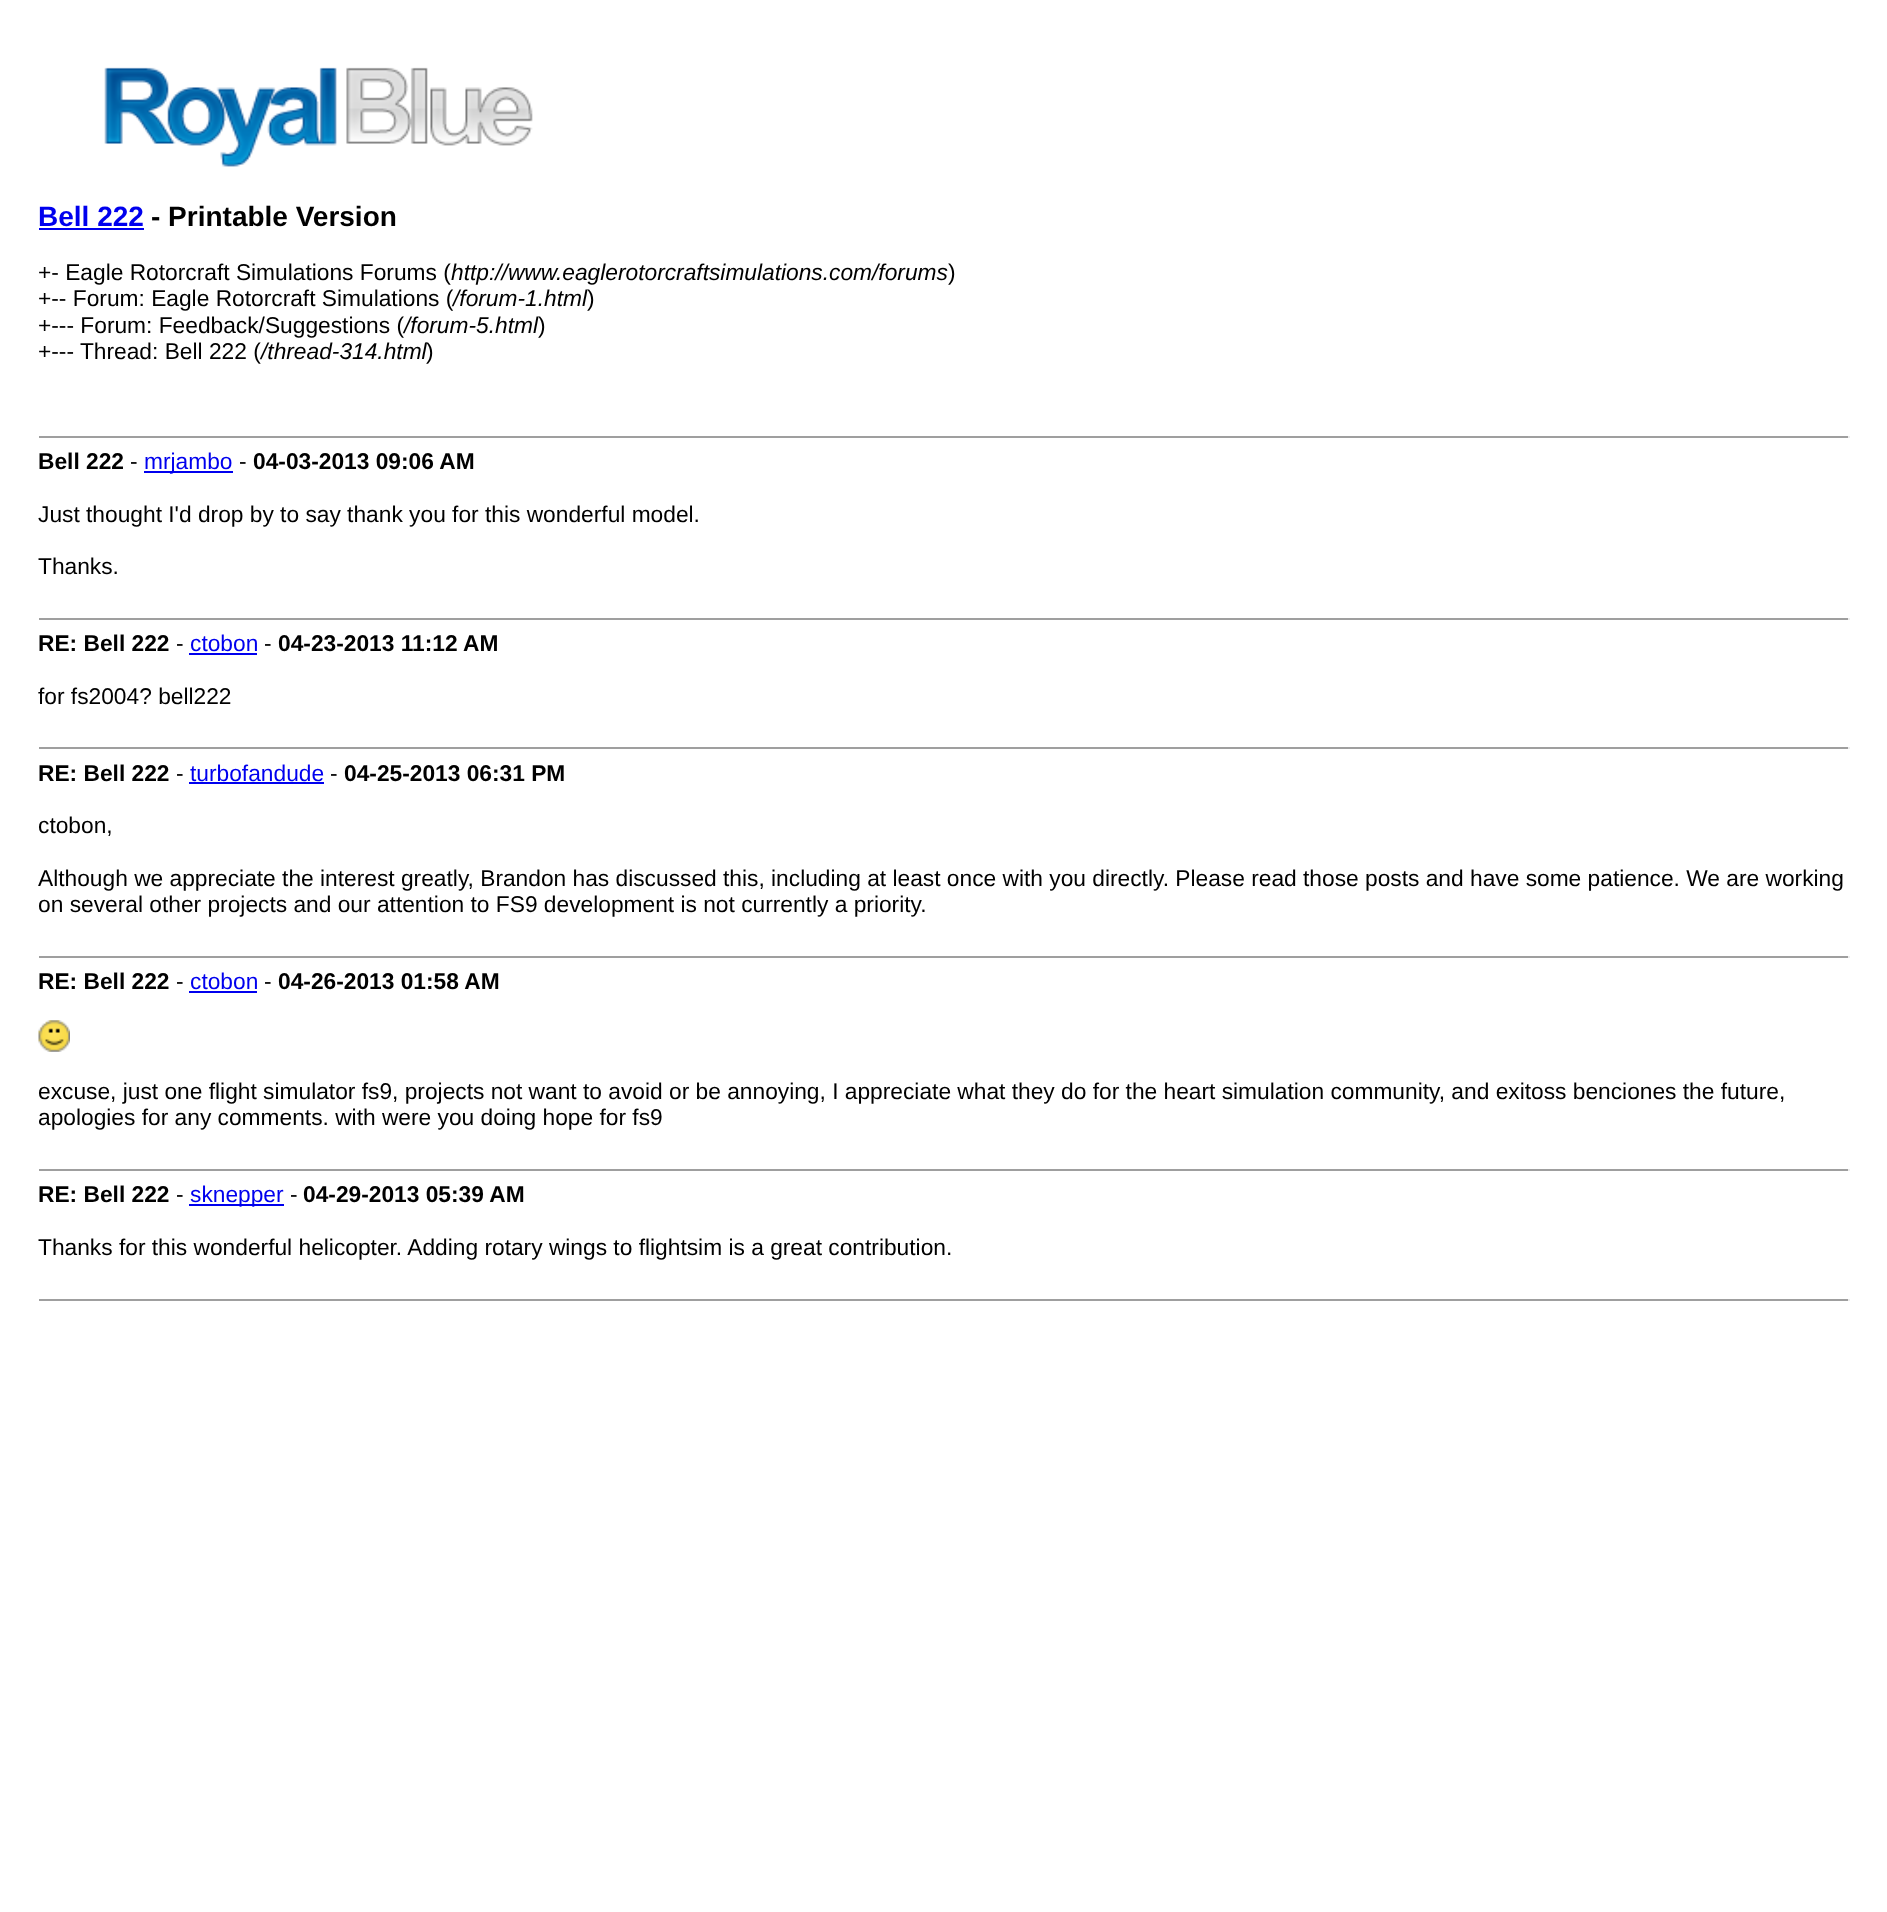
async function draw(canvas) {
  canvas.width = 1887
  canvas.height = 1912
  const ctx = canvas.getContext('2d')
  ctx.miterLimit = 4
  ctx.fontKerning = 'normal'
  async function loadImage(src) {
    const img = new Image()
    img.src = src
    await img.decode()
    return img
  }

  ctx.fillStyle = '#fff'
  ctx.fillRect(0, 0, 1887, 1912)
  ctx.drawImage(await loadImage('image0.png'), 104, 67, 429, 100)
  ctx.font = 'bold 28px Liberation Sans'
  ctx.fillStyle = '#00e'
  ctx.fillText('Bell 222', 38, 226)
  ctx.fillRect(39, 228, 105, 2)
  ctx.fillStyle = '#000'
  ctx.fillText('- Printable Version', 151, 226)
  ctx.font = '22.75px Liberation Sans'
  ctx.fillText('+- Eagle Rotorcraft Simulations Forums (', 38, 280)
  ctx.font = 'italic 22.75px Liberation Sans'
  ctx.fillText('http://www.eaglerotorcraftsimulations.com/forums', 451, 280)
  ctx.font = '22.75px Liberation Sans'
  ctx.fillText(')', 948, 280)
  ctx.fillText('+-- Forum: Eagle Rotorcraft Simulations (', 38, 306)
  ctx.font = 'italic 22.75px Liberation Sans'
  ctx.fillText('/forum-1.html', 453, 306)
  ctx.font = '22.75px Liberation Sans'
  ctx.fillText(')', 587, 306)
  ctx.fillText('+--- Forum: Feedback/Suggestions (', 38, 333)
  ctx.font = 'italic 22.75px Liberation Sans'
  ctx.fillText('/forum-5.html', 404, 333)
  ctx.font = '22.75px Liberation Sans'
  ctx.fillText(')', 538, 333)
  ctx.fillText('+--- Thread: Bell 222 (', 38, 359)
  ctx.font = 'italic 22.75px Liberation Sans'
  ctx.fillText('/thread-314.html', 261, 359)
  ctx.font = '22.75px Liberation Sans'
  ctx.fillText(')', 426, 359)
  ctx.fillStyle = '#9f9f9f'
  ctx.fillRect(39, 436, 1811, 2)
  ctx.fillStyle = '#eee'
  ctx.fillRect(1848, 436, 2, 2)
  ctx.font = 'bold 22.75px Liberation Sans'
  ctx.fillStyle = '#000'
  ctx.fillText('Bell 222', 38, 469)
  ctx.font = '22.75px Liberation Sans'
  ctx.fillText('-', 130, 469)
  ctx.fillStyle = '#00e'
  ctx.fillRect(144, 471, 89, 2)
  ctx.fillText('mrjambo', 144, 469)
  ctx.fillStyle = '#000'
  ctx.fillText('-', 239, 469)
  ctx.font = 'bold 22.75px Liberation Sans'
  ctx.fillText('04-03-2013 09:06 AM', 253, 469)
  ctx.font = '22.75px Liberation Sans'
  ctx.fillText('Just thought I\'d drop by to say thank you for this wonderful model.', 38, 522)
  ctx.fillText('Thanks.', 38, 574)
  ctx.fillStyle = '#9f9f9f'
  ctx.fillRect(39, 618, 1811, 2)
  ctx.fillStyle = '#eee'
  ctx.fillRect(1848, 618, 2, 2)
  ctx.font = 'bold 22.75px Liberation Sans'
  ctx.fillStyle = '#000'
  ctx.fillText('RE: Bell 222', 38, 651)
  ctx.font = '22.75px Liberation Sans'
  ctx.fillText('-', 176, 651)
  ctx.fillStyle = '#00e'
  ctx.fillText('ctobon', 190, 651)
  ctx.fillRect(189, 653, 68, 2)
  ctx.fillStyle = '#000'
  ctx.fillText('-', 264, 651)
  ctx.font = 'bold 22.75px Liberation Sans'
  ctx.fillText('04-23-2013 11:12 AM', 278, 651)
  ctx.font = '22.75px Liberation Sans'
  ctx.fillText('for fs2004? bell222', 38, 704)
  ctx.fillStyle = '#9f9f9f'
  ctx.fillRect(39, 747, 1811, 2)
  ctx.fillStyle = '#eee'
  ctx.fillRect(1848, 747, 2, 2)
  ctx.font = 'bold 22.75px Liberation Sans'
  ctx.fillStyle = '#000'
  ctx.fillText('RE: Bell 222', 38, 781)
  ctx.font = '22.75px Liberation Sans'
  ctx.fillText('-', 176, 781)
  ctx.fillStyle = '#00e'
  ctx.fillText('turbofandude', 190, 781)
  ctx.fillRect(189, 782, 135, 2)
  ctx.fillStyle = '#000'
  ctx.fillText('-', 330, 781)
  ctx.font = 'bold 22.75px Liberation Sans'
  ctx.fillText('04-25-2013 06:31 PM', 344, 781)
  ctx.font = '22.75px Liberation Sans'
  ctx.fillText('ctobon,', 38, 833)
  ctx.fillText('Although we appreciate the interest greatly, Brandon has discussed this, including at least once with you directly. Please read those posts and have some patience. We are working', 38, 886)
  ctx.fillText('on several other projects and our attention to FS9 development is not currently a priority.', 38, 912)
  ctx.fillStyle = '#9f9f9f'
  ctx.fillRect(39, 956, 1811, 2)
  ctx.fillStyle = '#eee'
  ctx.fillRect(1848, 956, 2, 2)
  ctx.font = 'bold 22.75px Liberation Sans'
  ctx.fillStyle = '#000'
  ctx.fillText('RE: Bell 222', 38, 989)
  ctx.font = '22.75px Liberation Sans'
  ctx.fillText('-', 176, 989)
  ctx.fillStyle = '#00e'
  ctx.fillText('ctobon', 190, 989)
  ctx.fillRect(189, 991, 68, 2)
  ctx.fillStyle = '#000'
  ctx.fillText('-', 264, 989)
  ctx.font = 'bold 22.75px Liberation Sans'
  ctx.fillText('04-26-2013 01:58 AM', 278, 989)
  ctx.drawImage(await loadImage('image1.png'), 38, 1020, 32, 32)
  ctx.font = '22.75px Liberation Sans'
  ctx.fillText('excuse, just one flight simulator fs9, projects not want to avoid or be annoying, I appreciate what they do for the heart simulation community, and exitoss benciones the future,', 38, 1099)
  ctx.fillText('apologies for any comments. with were you doing hope for fs9', 38, 1125)
  ctx.fillStyle = '#9f9f9f'
  ctx.fillRect(39, 1169, 1811, 2)
  ctx.fillStyle = '#eee'
  ctx.fillRect(1848, 1169, 2, 2)
  ctx.font = 'bold 22.75px Liberation Sans'
  ctx.fillStyle = '#000'
  ctx.fillText('RE: Bell 222', 38, 1202)
  ctx.font = '22.75px Liberation Sans'
  ctx.fillText('-', 176, 1202)
  ctx.fillStyle = '#00e'
  ctx.fillRect(189, 1204, 95, 2)
  ctx.fillText('sknepper', 190, 1202)
  ctx.fillStyle = '#000'
  ctx.fillText('-', 290, 1202)
  ctx.font = 'bold 22.75px Liberation Sans'
  ctx.fillText('04-29-2013 05:39 AM', 303, 1202)
  ctx.font = '22.75px Liberation Sans'
  ctx.fillText('Thanks for this wonderful helicopter. Adding rotary wings to flightsim is a great contribution.', 38, 1255)
  ctx.fillStyle = '#9f9f9f'
  ctx.fillRect(39, 1299, 1811, 2)
  ctx.fillStyle = '#eee'
  ctx.fillRect(1848, 1299, 2, 2)
}

draw(document.querySelector('canvas'))
